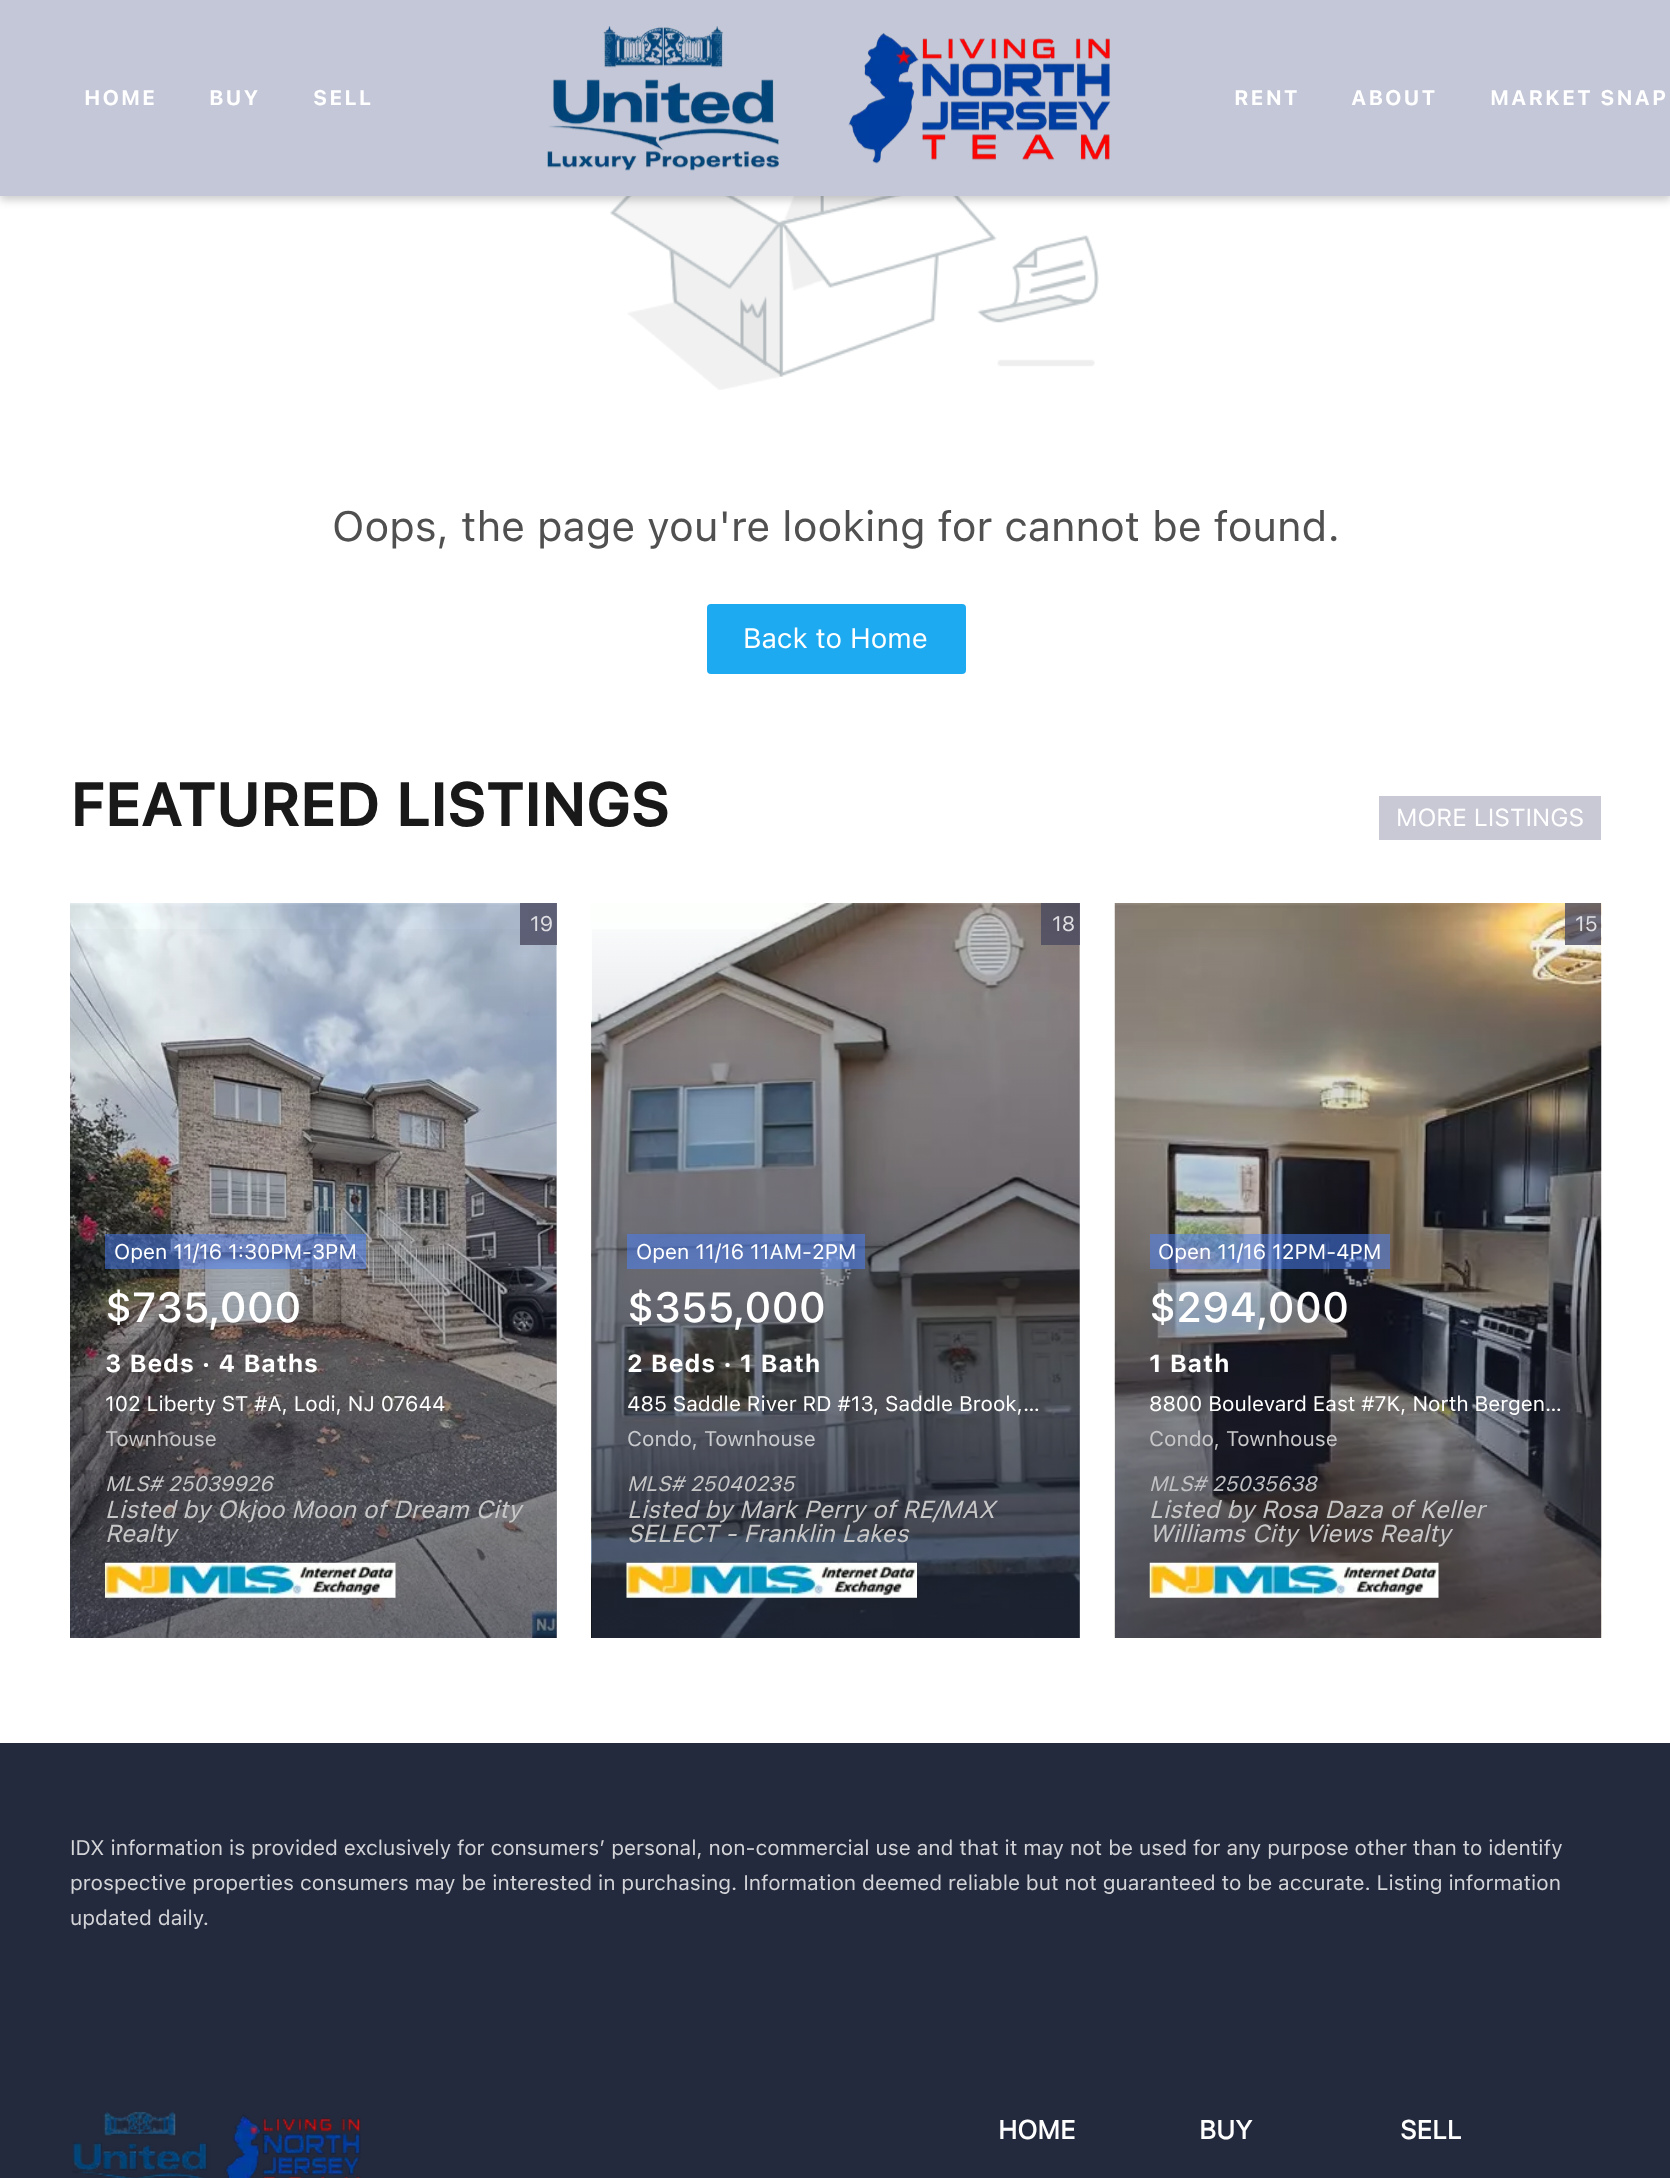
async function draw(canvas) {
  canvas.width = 1670
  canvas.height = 2178
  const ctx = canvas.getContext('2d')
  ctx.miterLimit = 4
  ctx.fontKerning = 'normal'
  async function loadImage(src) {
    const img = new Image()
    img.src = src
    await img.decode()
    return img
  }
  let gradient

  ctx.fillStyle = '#fff'
  ctx.fillRect(0, 0, 1670, 2178)
  ctx.drawImage(await loadImage('image2.png'), 610, 196, 489, 194)
  ctx.fillStyle = '#00000033'
  ctx.filter = 'blur(4.5px)'
  ctx.beginPath()
  ctx.rect(0, 4, 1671, 196)
  ctx.fill()
  ctx.filter = 'none'
  ctx.fillStyle = '#c3c7d7'
  ctx.fillRect(0, 0, 1670, 196)
  ctx.letterSpacing = '2px'
  ctx.font = 'bold 21px "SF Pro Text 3"'
  ctx.fillStyle = '#fff'
  ctx.fillText('HOME', 84, 105)
  ctx.fillText('BUY', 209, 105)
  ctx.fillText('SELL', 313, 105)
  ctx.drawImage(await loadImage('image0.png'), 547, 26, 232, 145)
  ctx.drawImage(await loadImage('image1.png'), 848, 33, 263, 131)
  ctx.fillText('RENT', 1234, 105)
  ctx.fillText('ABOUT', 1351, 105)
  ctx.fillText('MARKET SNAP', 1490, 105)
  ctx.letterSpacing = '0px'
  ctx.font = '42px SF Pro Text'
  ctx.fillStyle = '#505050'
  ctx.fillText('Oops, the page you\'re looking for cannot be found.', 332, 541)
  ctx.fillStyle = '#1daaf0'
  ctx.beginPath()
  ctx.roundRect(707, 604, 259, 70, 4)
  ctx.fill()
  ctx.font = '28px SF Pro Text'
  ctx.fillStyle = '#fff'
  ctx.fillText('Back to Home', 743, 648)
  ctx.font = 'bold 59.5px SF Pro Text'
  ctx.fillStyle = '#191919'
  ctx.fillText('FEATURED LISTINGS', 70, 826)
  ctx.fillStyle = '#c9c9d5'
  ctx.fillRect(1379, 796, 222, 44)
  ctx.font = '24.5px SF Pro Text'
  ctx.fillStyle = '#fff'
  ctx.fillText('MORE LISTINGS', 1396, 826)
  ctx.drawImage(await loadImage('image3.png'), 70, 903, 487, 735)
  ctx.drawImage(await loadImage('image4.png'), 298, 1256, 32, 31)
  gradient = ctx.createLinearGradient(313, 903, 313, 1638)
  gradient.addColorStop(0, '#242a3d00')
  gradient.addColorStop(1, '#242a3d99')
  gradient.addColorStop(1, '#242a3d')
  ctx.fillStyle = gradient
  ctx.fillRect(70, 929, 487, 709)
  ctx.fillStyle = '#4a4a60cc'
  ctx.fillRect(520, 903, 37, 42)
  ctx.font = '21px SF Pro Text'
  ctx.fillStyle = '#dfdfe3'
  ctx.fillText('19', 530, 931)
  ctx.fillStyle = '#4c84ff80'
  ctx.fillRect(105, 1234, 261, 35)
  ctx.fillStyle = '#fff'
  ctx.fillText('Open 11/16 1:30PM-3PM', 114, 1259)
  ctx.font = '500 42px SF Pro Text'
  ctx.fillText('$735,000', 105, 1322)
  ctx.letterSpacing = '0.9px'
  ctx.font = 'bold 24.5px "SF Pro Text 3"'
  ctx.fillText('3 Beds · 4 Baths', 105, 1372)
  ctx.letterSpacing = '0px'
  ctx.font = '21px SF Pro Text'
  ctx.fillText('102 Liberty ST #A, Lodi, NJ 07644', 105, 1411)
  ctx.fillStyle = '#c8c7c8'
  ctx.fillText('Townhouse', 105, 1446)
  ctx.font = 'italic 21px SF Pro Text'
  ctx.fillText('MLS# 25039926', 105, 1491)
  ctx.font = 'italic 24.5px SF Pro Text'
  ctx.fillText('Listed by Okjoo Moon of Dream City', 105, 1518)
  ctx.fillText('Realty', 105, 1542)
  ctx.drawImage(await loadImage('image5.png'), 105, 1562, 291, 36)
  ctx.drawImage(await loadImage('image6.png'), 591, 903, 489, 735)
  ctx.drawImage(await loadImage('image7.png'), 820, 1256, 32, 31)
  gradient = ctx.createLinearGradient(836, 903, 836, 1638)
  gradient.addColorStop(0, '#242a3d00')
  gradient.addColorStop(1, '#242a3d99')
  gradient.addColorStop(1, '#242a3d')
  ctx.fillStyle = gradient
  ctx.fillRect(592, 929, 488, 709)
  ctx.fillStyle = '#4a4a60cc'
  ctx.fillRect(1041, 903, 39, 42)
  ctx.font = '21px SF Pro Text'
  ctx.fillStyle = '#dfdfe3'
  ctx.fillText('18', 1052, 931)
  ctx.fillStyle = '#4c84ff80'
  ctx.fillRect(627, 1234, 238, 35)
  ctx.fillStyle = '#fff'
  ctx.fillText('Open 11/16 11AM-2PM', 636, 1259)
  ctx.font = '500 42px SF Pro Text'
  ctx.fillText('$355,000', 627, 1322)
  ctx.letterSpacing = '0.9px'
  ctx.font = 'bold 24.5px "SF Pro Text 3"'
  ctx.fillText('2 Beds · 1 Bath', 627, 1372)
  ctx.letterSpacing = '0px'
  ctx.font = '21px SF Pro Text'
  ctx.fillText('485 Saddle River RD #13, Saddle Brook,…', 627, 1411)
  ctx.fillStyle = '#c9cbce'
  ctx.fillText('Condo, Townhouse', 627, 1446)
  ctx.font = 'italic 21px SF Pro Text'
  ctx.fillStyle = '#c8c7c8'
  ctx.fillText('MLS# 25040235', 627, 1491)
  ctx.font = 'italic 24.5px SF Pro Text'
  ctx.fillText('Listed by Mark Perry of RE/MAX', 627, 1518)
  ctx.fillText('SELECT - Franklin Lakes', 627, 1542)
  ctx.drawImage(await loadImage('image8.png'), 626, 1562, 291, 36)
  ctx.drawImage(await loadImage('image9.png'), 1114, 903, 488, 735)
  ctx.drawImage(await loadImage('image10.png'), 1343, 1256, 32, 31)
  gradient = ctx.createLinearGradient(1358, 903, 1358, 1638)
  gradient.addColorStop(0, '#242a3d00')
  gradient.addColorStop(1, '#242a3d99')
  gradient.addColorStop(1, '#242a3d')
  ctx.fillStyle = gradient
  ctx.fillRect(1115, 929, 486, 709)
  ctx.fillStyle = '#4a4a60cc'
  ctx.fillRect(1565, 903, 36, 42)
  ctx.font = '21px SF Pro Text'
  ctx.fillStyle = '#dfdfe3'
  ctx.fillText('15', 1575, 931)
  ctx.fillStyle = '#4c84ff80'
  ctx.fillRect(1150, 1234, 240, 35)
  ctx.fillStyle = '#fff'
  ctx.fillText('Open 11/16 12PM-4PM', 1158, 1259)
  ctx.font = '500 42px SF Pro Text'
  ctx.fillText('$294,000', 1149, 1322)
  ctx.letterSpacing = '0.9px'
  ctx.font = 'bold 24.5px "SF Pro Text 3"'
  ctx.fillText('1 Bath', 1149, 1372)
  ctx.letterSpacing = '0px'
  ctx.font = '21px SF Pro Text'
  ctx.fillText('8800 Boulevard East #7K, North Bergen…', 1149, 1411)
  ctx.fillStyle = '#c8c7c8'
  ctx.fillText('Condo, Townhouse', 1149, 1446)
  ctx.font = 'italic 21px SF Pro Text'
  ctx.fillStyle = '#c2c2c5'
  ctx.fillText('MLS# 25035638', 1149, 1491)
  ctx.font = 'italic 24.5px SF Pro Text'
  ctx.fillStyle = '#c8c7c8'
  ctx.fillText('Listed by Rosa Daza of Keller', 1149, 1518)
  ctx.fillText('Williams City Views Realty', 1149, 1542)
  ctx.drawImage(await loadImage('image11.png'), 1149, 1562, 290, 36)
  ctx.fillStyle = '#242a3d'
  ctx.fillRect(0, 1743, 1670, 435)
  ctx.font = '21px SF Pro Text'
  ctx.fillStyle = '#d3d4d8'
  ctx.fillText('IDX information is provided exclusively for consumers’ personal, non-commercial use and that it may not be used for any purpose other than to identify', 70, 1855)
  ctx.fillText('prospective properties consumers may be interested in purchasing. Information deemed reliable but not guaranteed to be accurate. Listing information', 70, 1890)
  ctx.fillText('updated daily.', 70, 1925)
  ctx.drawImage(await loadImage('image12.png'), 72, 2111, 289, 67)
  ctx.font = 'bold 26px "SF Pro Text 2"'
  ctx.fillStyle = '#fff'
  ctx.fillText('HOME', 998, 2139)
  ctx.fillText('BUY', 1199, 2139)
  ctx.fillText('SELL', 1400, 2139)
}

draw(document.querySelector('canvas'))
